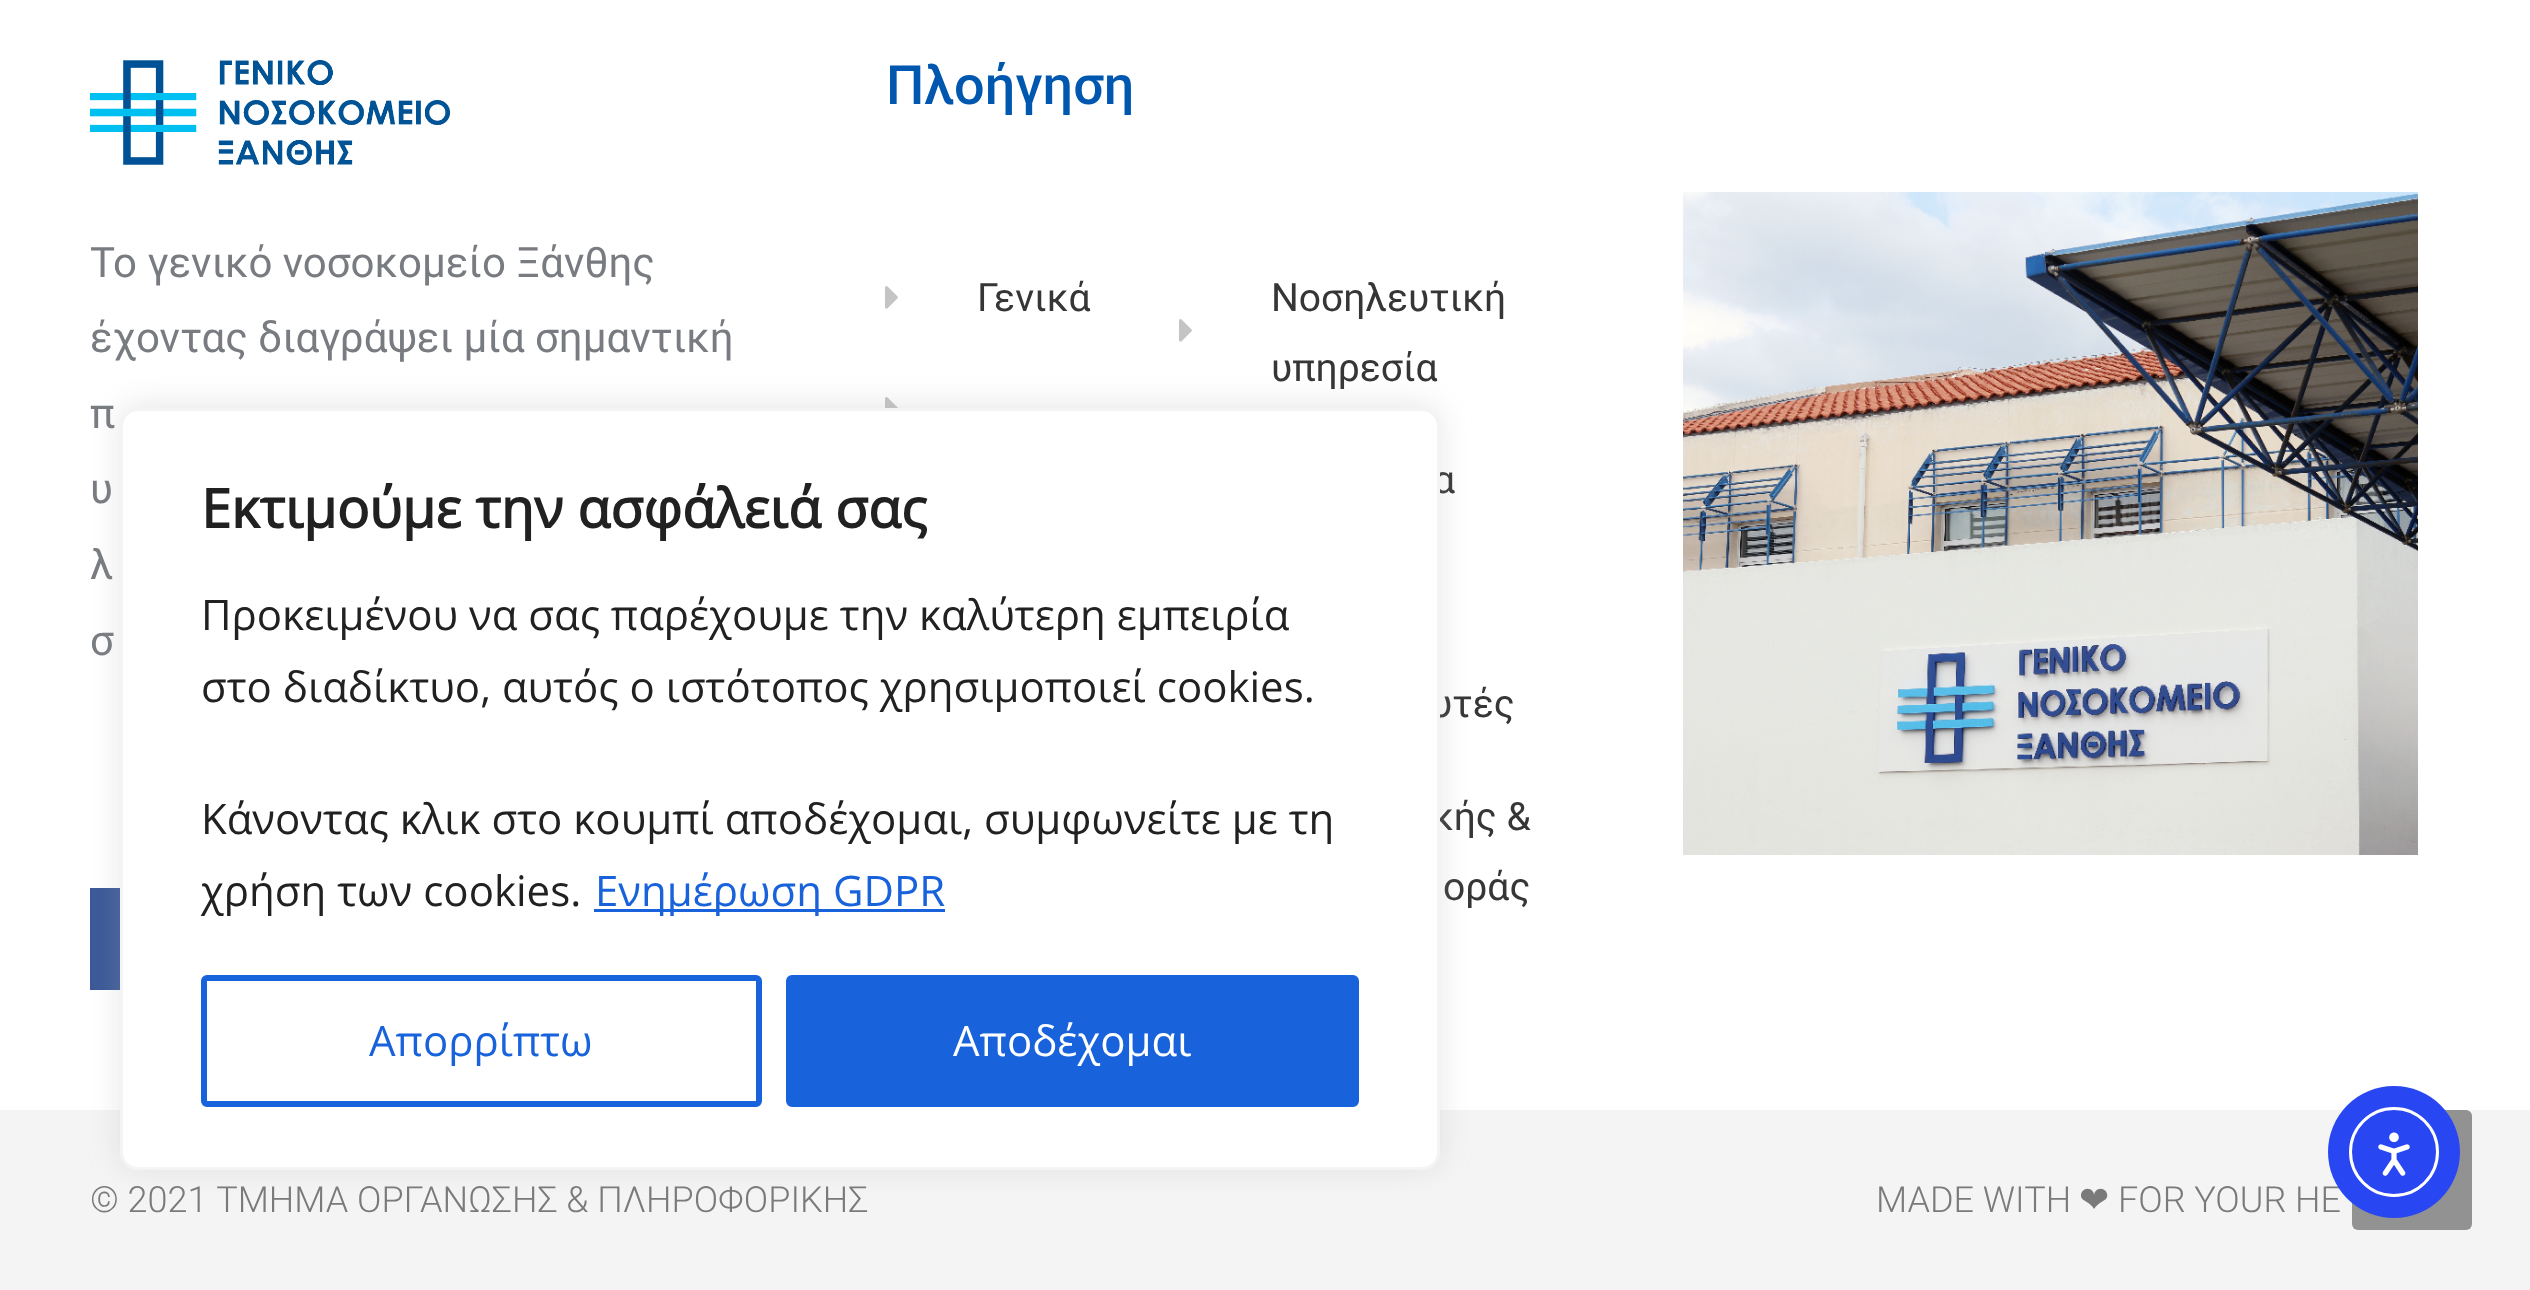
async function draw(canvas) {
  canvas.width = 2530
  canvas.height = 1290
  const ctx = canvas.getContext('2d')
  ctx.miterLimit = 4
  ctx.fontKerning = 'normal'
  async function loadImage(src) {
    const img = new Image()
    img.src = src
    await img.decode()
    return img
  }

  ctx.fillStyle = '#fff'
  ctx.fillRect(0, 0, 2530, 1290)
  ctx.drawImage(await loadImage('image0.png'), 90, 60, 360, 105)
  ctx.font = '42px Roboto'
  ctx.fillStyle = '#787c81'
  ctx.fillText('Το γενικό νοσοκομείο Ξάνθης', 90, 277)
  ctx.fillText('έχοντας διαγράψει μία σημαντική', 90, 352)
  ctx.fillText('π', 90, 428)
  ctx.fillText('υ', 90, 503)
  ctx.fillText('λ', 90, 579)
  ctx.fillText('σ', 90, 655)
  ctx.fillStyle = '#3b5998'
  ctx.fillRect(90, 888, 30, 102)
  ctx.font = '500 54px Roboto'
  ctx.fillStyle = '#0057af'
  ctx.fillText('Πλοήγηση', 886, 104)
  ctx.drawImage(await loadImage('image1.png'), 885, 286, 13, 23)
  ctx.font = '39px Roboto'
  ctx.fillStyle = '#363636'
  ctx.fillText('Γενικά', 977, 311)
  ctx.drawImage(await loadImage('image2.png'), 885, 397, 13, 11)
  ctx.drawImage(await loadImage('image1.png'), 1179, 319, 13, 23)
  ctx.fillText('Νοσηλευτική', 1271, 311)
  ctx.fillText('υπηρεσία', 1271, 381)
  ctx.fillText('α', 1433, 493)
  ctx.fillText('υτές', 1431, 717)
  ctx.fillText('κής &', 1432, 830)
  ctx.fillText('οράς', 1443, 900)
  ctx.drawImage(await loadImage('image3.png'), 1683, 192, 735, 663)
  ctx.fillStyle = '#f4f4f4'
  ctx.fillRect(0, 1110, 2530, 180)
  ctx.font = '300 36px Roboto'
  ctx.fillStyle = '#7a7a7a'
  ctx.fillText('© 2021 ΤΜΗΜΑ ΟΡΓΑΝΩΣΗΣ & ΠΛΗΡΟΦΟΡΙΚΗΣ', 90, 1212)
  ctx.fillText('MADE WITH', 1876, 1212)
  ctx.font = '36px DejaVu Sans'
  ctx.fillText('❤', 2079, 1212)
  ctx.font = '300 36px Roboto'
  ctx.fillText('FOR YOUR HE', 2118, 1212)
  ctx.fillStyle = '#acabab4d'
  ctx.filter = 'blur(15px)'
  ctx.beginPath()
  ctx.roundRect(120, 405, 1320, 762, 18)
  ctx.fill()
  ctx.filter = 'none'
  ctx.fillStyle = '#fff'
  ctx.beginPath()
  ctx.roundRect(121.5, 409.5, 1317, 759, 16.5)
  ctx.fill()
  ctx.strokeStyle = '#f4f4f4'
  ctx.lineWidth = 3
  ctx.stroke()
  ctx.font = 'bold 54px Open Sans'
  ctx.fillStyle = '#212121'
  ctx.fillText('Εκτιμούμε την ασφάλειά σας', 201, 528)
  ctx.font = '42px Open Sans'
  ctx.fillText('Προκειμένου να σας παρέχουμε την καλύτερη εμπειρία', 201, 630)
  ctx.fillText('στο διαδίκτυο, αυτός ο ιστότοπος χρησιμοποιεί cookies.', 201, 702)
  ctx.fillText('Κάνοντας κλικ στο κουμπί αποδέχομαι, συμφωνείτε με τη', 201, 834)
  ctx.fillText('χρήση των cookies.', 201, 906)
  ctx.fillStyle = '#1863dc'
  ctx.fillRect(594, 909, 351, 3)
  ctx.fillText('Ενημέρωση GDPR', 595, 906)
  ctx.beginPath()
  ctx.roundRect(204, 978, 555, 126, 3)
  ctx.strokeStyle = '#1863dc'
  ctx.lineWidth = 6
  ctx.stroke()
  ctx.fillText('Απορρίπτω', 369, 1056)
  ctx.beginPath()
  ctx.roundRect(789, 978, 567, 126, 3)
  ctx.fill()
  ctx.stroke()
  ctx.fillStyle = '#fff'
  ctx.fillText('Αποδέχομαι', 953, 1056)
  ctx.fillStyle = '#00000066'
  ctx.beginPath()
  ctx.roundRect(2352, 1110, 120, 120, 6)
  ctx.fill()
  ctx.fillStyle = '#2847f3'
  ctx.beginPath()
  ctx.arc(2394, 1152, 66, 0, 2 * Math.PI)
  ctx.fill()
  ctx.beginPath()
  ctx.arc(2394, 1152, 43.5, 0, 2 * Math.PI)
  ctx.strokeStyle = '#fff'
  ctx.lineWidth = 3
  ctx.stroke()
  ctx.drawImage(await loadImage('image4.png'), 2378, 1132, 32, 44)
}

draw(document.querySelector('canvas'))
